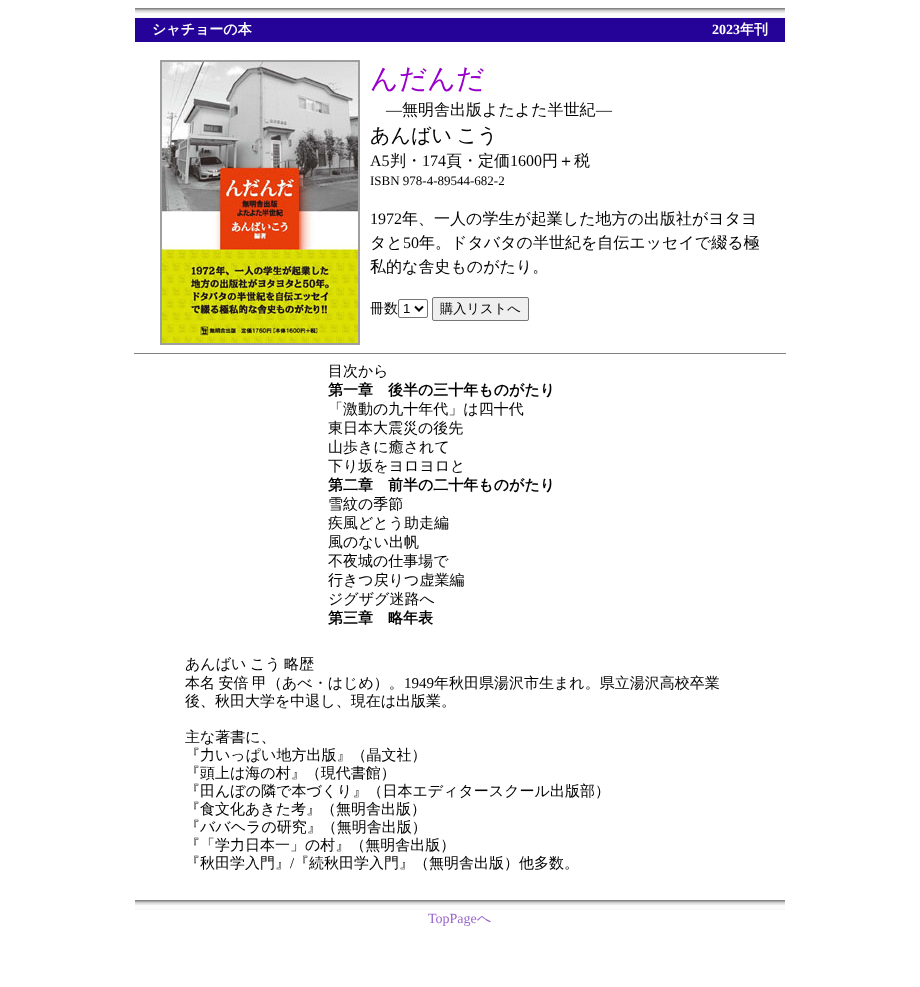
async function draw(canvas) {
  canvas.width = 920
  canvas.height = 987
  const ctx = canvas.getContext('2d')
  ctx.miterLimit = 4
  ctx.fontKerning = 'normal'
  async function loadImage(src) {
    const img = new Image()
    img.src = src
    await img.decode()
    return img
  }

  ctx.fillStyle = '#fff'
  ctx.fillRect(0, 0, 920, 987)
  ctx.drawImage(await loadImage('image0.png'), 135, 8, 650, 10)
  ctx.fillStyle = '#250398'
  ctx.fillRect(135, 18, 650, 24)
  ctx.font = 'bold 14px WenQuanYi Zen Hei'
  ctx.fillStyle = '#fff'
  ctx.fillText('シャチョーの本', 152, 34)
  ctx.font = 'bold 14px Liberation Serif'
  ctx.fillText('2023', 712, 34)
  ctx.font = 'bold 14px WenQuanYi Zen Hei'
  ctx.fillText('年刊', 740, 34)
  ctx.drawImage(await loadImage('image1.png'), 160, 60, 200, 285)
  ctx.font = '500 28px WenQuanYi Zen Hei'
  ctx.fillStyle = '#90c'
  ctx.fillText('んだんだ', 370, 88)
  ctx.font = '16px Liberation Serif'
  ctx.fillStyle = '#000'
  ctx.fillText('―', 386, 115)
  ctx.font = '500 16px WenQuanYi Zen Hei'
  ctx.fillText('無明舎出版よたよた半世紀', 402, 115)
  ctx.font = '16px Liberation Serif'
  ctx.fillText('―', 596, 115)
  ctx.wordSpacing = '-1px'
  ctx.font = '500 20px WenQuanYi Zen Hei'
  ctx.fillText('あんばい こう', 370, 142)
  ctx.wordSpacing = '0px'
  ctx.font = '16px Liberation Serif'
  ctx.fillText('A5', 370, 166)
  ctx.font = '500 16px WenQuanYi Zen Hei'
  ctx.fillText('判・', 390, 166)
  ctx.font = '16px Liberation Serif'
  ctx.fillText('174', 422, 166)
  ctx.font = '500 16px WenQuanYi Zen Hei'
  ctx.fillText('頁・定価', 446, 166)
  ctx.font = '16px Liberation Serif'
  ctx.fillText('1600', 510, 166)
  ctx.font = '500 16px WenQuanYi Zen Hei'
  ctx.fillText('円＋税', 542, 166)
  ctx.font = '13px Liberation Serif'
  ctx.fillText('ISBN 978-4-89544-682-2', 370, 185)
  ctx.font = '16px Liberation Serif'
  ctx.fillText('1972', 370, 224)
  ctx.font = '500 16px WenQuanYi Zen Hei'
  ctx.fillText('年、一人の学生が起業した地方の出版社がヨタヨ', 402, 224)
  ctx.fillText('タと', 370, 248)
  ctx.font = '16px Liberation Serif'
  ctx.fillText('50', 403, 248)
  ctx.font = '500 16px WenQuanYi Zen Hei'
  ctx.fillText('年。ドタバタの半世紀を自伝エッセイで綴る極', 419, 248)
  ctx.fillText('私的な舎史ものがたり。', 370, 272)
  ctx.font = '500 14px WenQuanYi Zen Hei'
  ctx.fillText('冊数', 370, 313)
  ctx.beginPath()
  ctx.roundRect(398.5, 299.5, 29, 18, 1.5)
  ctx.strokeStyle = '#767676'
  ctx.stroke()
  ctx.beginPath()
  ctx.moveTo(415, 306.5)
  ctx.lineTo(419, 310.5)
  ctx.lineTo(423, 306.5)
  ctx.strokeStyle = '#000'
  ctx.lineWidth = 2
  ctx.stroke()
  ctx.font = '13.25px Liberation Sans'
  ctx.fillText('1', 403, 313)
  ctx.fillStyle = '#efefef'
  ctx.beginPath()
  ctx.roundRect(432.5, 297.5, 96, 23, 1.5)
  ctx.fill()
  ctx.strokeStyle = '#767676'
  ctx.lineWidth = 1
  ctx.stroke()
  ctx.font = '500 13.25px WenQuanYi Zen Hei'
  ctx.fillStyle = '#000'
  ctx.fillText('購入リストへ', 440, 313)
  ctx.fillStyle = '#808080'
  ctx.fillRect(134, 353, 652, 1)
  ctx.font = '500 15px WenQuanYi Zen Hei'
  ctx.fillStyle = '#000'
  ctx.fillText('目次から', 328, 376)
  ctx.font = 'bold 15px WenQuanYi Zen Hei'
  ctx.fillText('第一章　後半の三十年ものがたり', 328, 395)
  ctx.font = '500 15px WenQuanYi Zen Hei'
  ctx.fillText('「激動の九十年代」は四十代', 328, 414)
  ctx.fillText('東日本大震災の後先', 328, 433)
  ctx.fillText('山歩きに癒されて', 328, 452)
  ctx.fillText('下り坂をヨロヨロと', 328, 471)
  ctx.font = 'bold 15px WenQuanYi Zen Hei'
  ctx.fillText('第二章　前半の二十年ものがたり', 328, 490)
  ctx.font = '500 15px WenQuanYi Zen Hei'
  ctx.fillText('雪紋の季節', 328, 509)
  ctx.fillText('疾風どとう助走編', 328, 528)
  ctx.fillText('風のない出帆', 328, 547)
  ctx.fillText('不夜城の仕事場で', 328, 566)
  ctx.fillText('行きつ戻りつ虚業編', 328, 585)
  ctx.fillText('ジグザグ迷路へ', 328, 604)
  ctx.font = 'bold 15px WenQuanYi Zen Hei'
  ctx.fillText('第三章　略年表', 328, 623)
  ctx.wordSpacing = '-1px'
  ctx.font = '500 15px WenQuanYi Zen Hei'
  ctx.fillText('あんばい こう 略歴', 185, 669)
  ctx.fillText('本名 安倍 甲（あべ・はじめ）。', 185, 688)
  ctx.wordSpacing = '0px'
  ctx.font = '15px Liberation Serif'
  ctx.fillText('1949', 404, 688)
  ctx.font = '500 15px WenQuanYi Zen Hei'
  ctx.fillText('年秋田県湯沢市生まれ。県立湯沢高校卒業', 434, 688)
  ctx.fillText('後、秋田大学を中退し、現在は出版業。', 185, 706)
  ctx.fillText('主な著書に、', 185, 742)
  ctx.fillText('『力いっぱい地方出版』（晶文社）', 185, 760)
  ctx.fillText('『頭上は海の村』（現代書館）', 185, 778)
  ctx.fillText('『田んぼの隣で本づくり』（日本エディタースクール出版部）', 185, 796)
  ctx.fillText('『食文化あきた考』（無明舎出版）', 185, 814)
  ctx.fillText('『ババヘラの研究』（無明舎出版）', 185, 832)
  ctx.fillText('『「学力日本一」の村』（無明舎出版）', 185, 850)
  ctx.fillText('『秋田学入門』', 185, 868)
  ctx.font = '15px Liberation Serif'
  ctx.fillText('/', 290, 868)
  ctx.font = '500 15px WenQuanYi Zen Hei'
  ctx.fillText('『続秋田学入門』（無明舎出版）他多数。', 294, 868)
  ctx.drawImage(await loadImage('image0.png'), 135, 900, 650, 10)
  ctx.font = '14px Liberation Serif'
  ctx.fillStyle = '#96c'
  ctx.fillText('TopPage', 428, 923)
  ctx.font = '500 14px WenQuanYi Zen Hei'
  ctx.fillText('へ', 477, 923)
}

draw(document.querySelector('canvas'))
